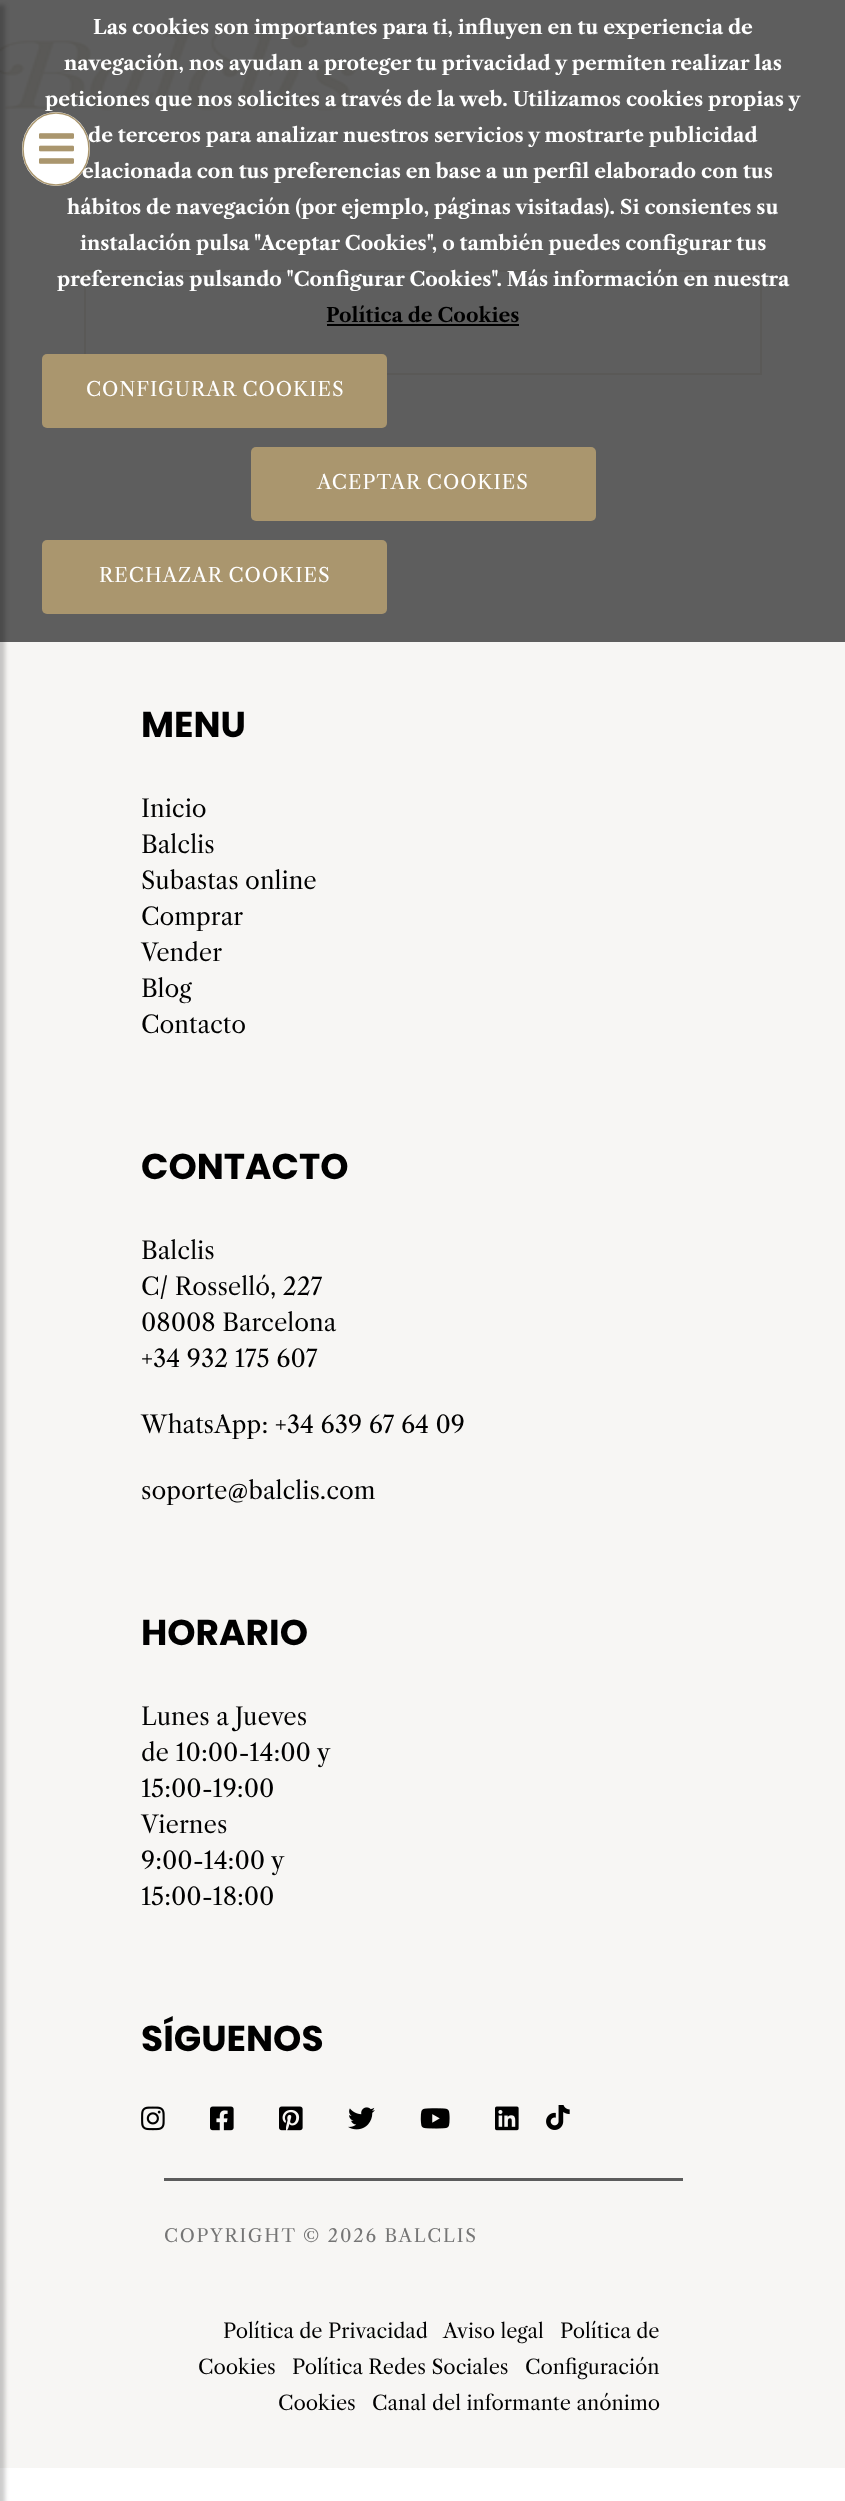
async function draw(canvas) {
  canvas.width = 845
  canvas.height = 2501
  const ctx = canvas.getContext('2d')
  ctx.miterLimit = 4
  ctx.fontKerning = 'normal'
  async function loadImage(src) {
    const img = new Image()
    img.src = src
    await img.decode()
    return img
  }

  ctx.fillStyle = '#fff'
  ctx.fillRect(0, 0, 845, 2501)
  ctx.fillStyle = '#5e5e5e'
  ctx.fillRect(0, 0, 845, 642)
  ctx.drawImage(await loadImage('image1.png'), 0, 27, 358, 84)
  ctx.fillStyle = '#f7f6f4'
  ctx.fillRect(0, 642, 845, 1826)
  ctx.fillStyle = '#00000033'
  ctx.filter = 'blur(2px)'
  ctx.beginPath()
  ctx.rect(-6, 5, 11, 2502)
  ctx.fill()
  ctx.filter = 'none'
  ctx.font = 'bold 19.5px Libre Caslon Text'
  ctx.fillStyle = '#fff'
  ctx.fillText('Las cookies son importantes para ti, influyen en tu experiencia de', 93, 34)
  ctx.fillText('navegación, nos ayudan a proteger tu privacidad y permiten realizar las', 64, 70)
  ctx.fillText('peticiones que nos solicites a través de la web. Utilizamos cookies propias y', 45, 106)
  ctx.fillText('de terceros para analizar nuestros servicios y mostrarte publicidad', 88, 142)
  ctx.fillText('elacionada con tus preferencias en base a un perfil elaborado con tus', 82, 178)
  ctx.fillText('hábitos de navegación (por ejemplo, páginas visitadas). Si consientes su', 67, 214)
  ctx.fillText('instalación pulsa "Aceptar Cookies", o también puedes configurar tus', 80, 250)
  ctx.strokeStyle = '#5a5957'
  ctx.lineWidth = 2
  ctx.strokeRect(85, 271, 676, 103)
  ctx.fillText('preferencias pulsando "Configurar Cookies". Más información en nuestra', 57, 286)
  ctx.fillStyle = '#000'
  ctx.fillText('Política de Cookies', 326, 322)
  ctx.fillRect(327, 324, 192, 2)
  ctx.fillStyle = '#aa966e'
  ctx.beginPath()
  ctx.roundRect(42, 354, 345, 74, 5)
  ctx.fill()
  ctx.letterSpacing = '1px'
  ctx.font = '19.5px Libre Caslon Text'
  ctx.fillStyle = '#fff'
  ctx.fillText('CONFIGURAR COOKIES', 86, 396)
  ctx.fillStyle = '#aa966e'
  ctx.beginPath()
  ctx.roundRect(251, 447, 345, 74, 5)
  ctx.fill()
  ctx.fillStyle = '#fff'
  ctx.fillText('ACEPTAR COOKIES', 317, 489)
  ctx.fillStyle = '#aa966e'
  ctx.beginPath()
  ctx.roundRect(42, 540, 345, 74, 5)
  ctx.fill()
  ctx.fillStyle = '#fff'
  ctx.fillText('RECHAZAR COOKIES', 99, 582)
  ctx.beginPath()
  ctx.ellipse(56, 149, 34, 37, 0, 0, 2 * Math.PI)
  ctx.fill()
  ctx.beginPath()
  ctx.moveTo(56, 113)
  ctx.bezierCurveTo(74.5, 113, 89, 129.5, 89, 149)
  ctx.bezierCurveTo(89, 169, 74.5, 185, 56, 185)
  ctx.bezierCurveTo(38, 185, 23, 169, 23, 149)
  ctx.bezierCurveTo(23, 129.5, 38, 113, 56, 113)
  ctx.closePath()
  ctx.strokeStyle = '#aa966e'
  ctx.lineWidth = 1.5
  ctx.stroke()
  ctx.drawImage(await loadImage('image0.png'), 39, 133, 35, 31)
  ctx.letterSpacing = '0px'
  ctx.font = 'bold 36px Poppins'
  ctx.fillStyle = '#000'
  ctx.fillText('MENU', 141, 737)
  ctx.font = '24px Libre Caslon Text'
  ctx.fillText('Inicio', 141, 817)
  ctx.fillText('Balclis', 141, 853)
  ctx.fillText('Subastas online', 141, 889)
  ctx.fillText('Comprar', 141, 925)
  ctx.fillText('Vender', 141, 961)
  ctx.fillText('Blog', 141, 997)
  ctx.fillText('Contacto', 141, 1033)
  ctx.font = 'bold 36px Poppins'
  ctx.fillText('CONTACTO', 141, 1179)
  ctx.font = '24px Libre Caslon Text'
  ctx.fillText('Balclis', 141, 1259)
  ctx.fillText('C/ Rosselló, 227', 141, 1295)
  ctx.fillText('08008 Barcelona', 141, 1331)
  ctx.fillText('+34 932 175 607', 141, 1367)
  ctx.fillText('WhatsApp: +34 639 67 64 09', 141, 1433)
  ctx.fillText('soporte@balclis.com', 141, 1499)
  ctx.font = 'bold 36px Poppins'
  ctx.fillText('HORARIO', 141, 1645)
  ctx.font = '24px Libre Caslon Text'
  ctx.fillText('Lunes a Jueves', 141, 1725)
  ctx.fillText('de 10:00-14:00 y', 141, 1761)
  ctx.fillText('15:00-19:00', 141, 1797)
  ctx.fillText('Viernes', 141, 1833)
  ctx.fillText('9:00-14:00 y', 141, 1869)
  ctx.fillText('15:00-18:00', 141, 1905)
  ctx.font = 'bold 36px Poppins'
  ctx.fillText('SÍGUENOS', 141, 2051)
  ctx.drawImage(await loadImage('image2.png'), 141, 2106, 24, 25)
  ctx.drawImage(await loadImage('image3.png'), 210, 2106, 24, 25)
  ctx.drawImage(await loadImage('image4.png'), 279, 2106, 24, 25)
  ctx.drawImage(await loadImage('image5.png'), 348, 2107, 27, 23)
  ctx.drawImage(await loadImage('image6.png'), 420, 2108, 30, 21)
  ctx.drawImage(await loadImage('image7.png'), 495, 2106, 24, 25)
  ctx.drawImage(await loadImage('image8.png'), 546, 2105, 24, 25)
  ctx.fillStyle = '#5c5c5c'
  ctx.fillRect(164, 2178, 519, 3)
  ctx.letterSpacing = '1.8px'
  ctx.font = '18px Libre Caslon Text'
  ctx.fillStyle = '#757575'
  ctx.fillText('COPYRIGHT © 2026 BALCLIS', 164, 2242)
  ctx.letterSpacing = '0px'
  ctx.font = '20px Libre Caslon Text'
  ctx.fillStyle = '#000'
  ctx.fillText('Política de Privacidad', 223, 2338)
  ctx.fillText('Aviso legal', 443, 2338)
  ctx.fillText('Política de', 560, 2338)
  ctx.fillText('Cookies', 198, 2374)
  ctx.fillText('Política Redes Sociales', 292, 2374)
  ctx.fillText('Configuración', 525, 2374)
  ctx.fillText('Cookies', 278, 2410)
  ctx.fillText('Canal del informante anónimo', 372, 2410)
}

draw(document.querySelector('canvas'))
